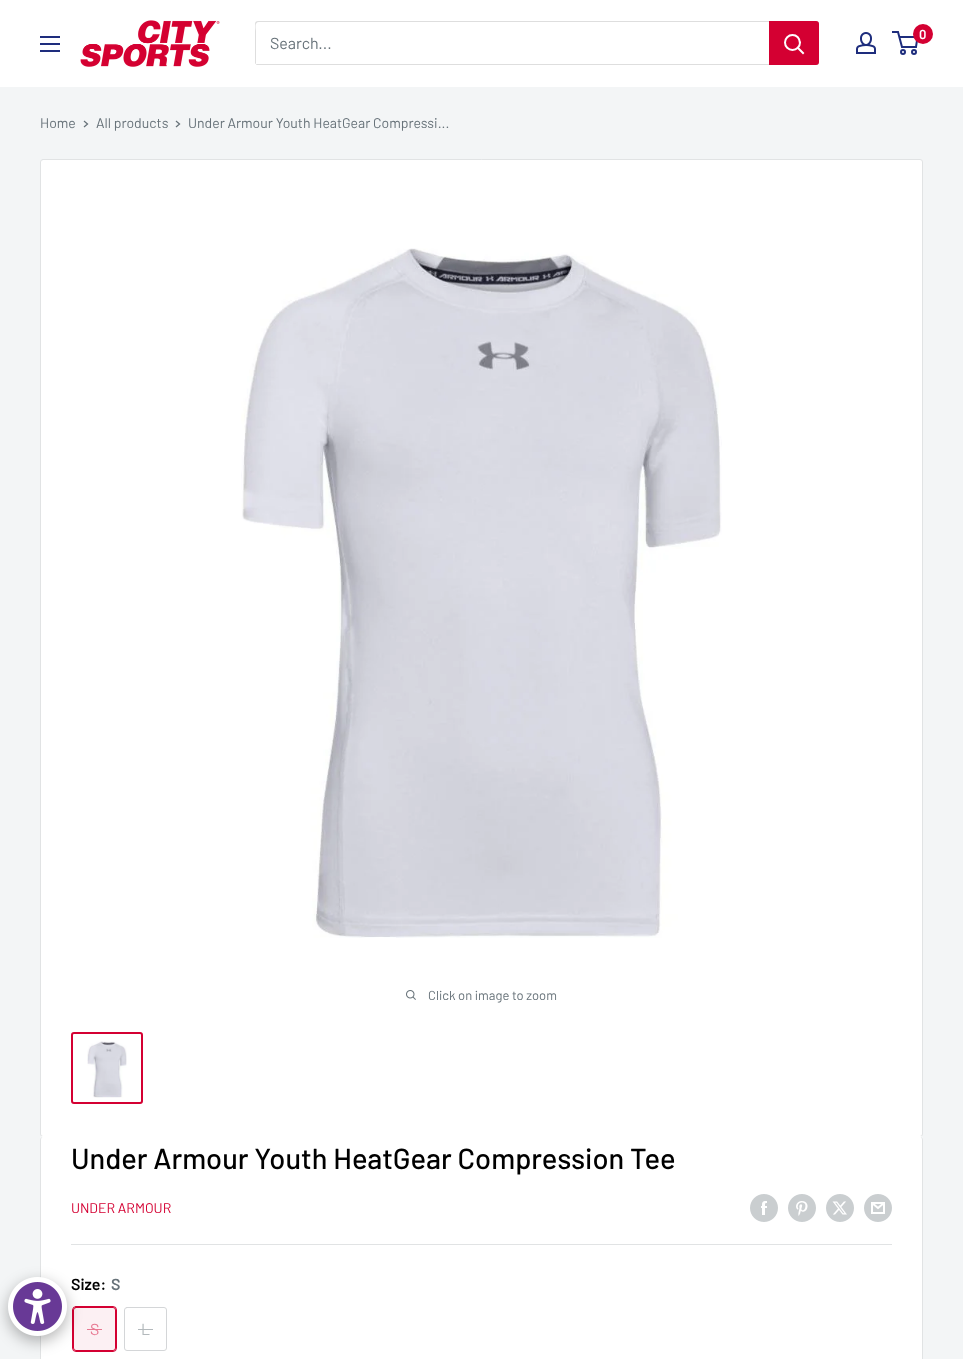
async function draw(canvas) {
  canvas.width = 963
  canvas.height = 1359
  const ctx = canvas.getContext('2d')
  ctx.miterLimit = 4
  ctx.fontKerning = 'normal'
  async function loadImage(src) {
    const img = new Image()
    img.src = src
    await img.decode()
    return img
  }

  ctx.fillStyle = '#f3f5f6'
  ctx.fillRect(0, 0, 963, 1359)
  ctx.fillStyle = '#fff'
  ctx.fillRect(0, 0, 963, 87)
  ctx.drawImage(await loadImage('image0.png'), 80, 20, 140, 47)
  ctx.drawImage(await loadImage('image1.png'), 856, 32, 20, 22)
  ctx.beginPath()
  ctx.arc(903, 52, 2, 0, 2 * Math.PI)
  ctx.strokeStyle = '#1e2d7d'
  ctx.lineWidth = 2
  ctx.stroke()
  ctx.beginPath()
  ctx.arc(914, 52, 2, 0, 2 * Math.PI)
  ctx.stroke()
  ctx.beginPath()
  ctx.moveTo(899.5, 37)
  ctx.lineTo(917.5, 37)
  ctx.lineTo(916, 47)
  ctx.lineTo(902, 47)
  ctx.lineTo(898, 32)
  ctx.lineTo(892, 32)
  ctx.stroke()
  ctx.fillStyle = '#d40032'
  ctx.beginPath()
  ctx.arc(923, 34, 10, 0, 2 * Math.PI)
  ctx.fill()
  ctx.font = '600 13px Barlow'
  ctx.fillStyle = '#fff'
  ctx.fillText('0', 919, 39)
  ctx.drawImage(await loadImage('image2.png'), 40, 36, 20, 16)
  ctx.fillStyle = '#dedede'
  ctx.beginPath()
  ctx.moveTo(256, 64)
  ctx.bezierCurveTo(256, 65, 257, 65, 258, 65)
  ctx.lineTo(816, 65)
  ctx.bezierCurveTo(818, 65, 819, 64, 819, 62)
  ctx.lineTo(819, 24)
  ctx.bezierCurveTo(819, 23, 819, 22, 818, 22)
  ctx.lineTo(818, 55)
  ctx.bezierCurveTo(818, 57, 820, 64, 815, 64)
  ctx.closePath()
  ctx.fill()
  ctx.beginPath()
  ctx.moveTo(259, 22)
  ctx.lineTo(818, 22)
  ctx.bezierCurveTo(818, 21, 817, 21, 816, 21)
  ctx.lineTo(258, 21)
  ctx.bezierCurveTo(256, 21, 255, 22, 255, 24)
  ctx.lineTo(255, 62)
  ctx.bezierCurveTo(255, 63, 255, 64, 256, 64)
  ctx.lineTo(256, 31)
  ctx.bezierCurveTo(256, 29, 254, 22, 259, 22)
  ctx.closePath()
  ctx.fill()
  ctx.font = '16px Barlow'
  ctx.fillStyle = '#677279'
  ctx.fillText('Search...', 270, 49)
  ctx.fillStyle = '#d40032'
  ctx.beginPath()
  ctx.roundRect(769, 21, 50, 44, [0, 3, 3, 0])
  ctx.fill()
  ctx.beginPath()
  ctx.moveTo(803, 53)
  ctx.lineTo(798, 48)
  ctx.strokeStyle = '#fff'
  ctx.lineCap = 'square'
  ctx.stroke()
  ctx.beginPath()
  ctx.arc(792.5, 42.5, 7.5, 0, 2 * Math.PI)
  ctx.stroke()
  ctx.font = '14px Barlow'
  ctx.fillStyle = '#677279'
  ctx.fillText('Home', 40, 128)
  ctx.beginPath()
  ctx.moveTo(84.5, 121.5)
  ctx.lineTo(87.5, 124)
  ctx.lineTo(84.5, 126.5)
  ctx.strokeStyle = '#677279'
  ctx.lineWidth = 1.3
  ctx.stroke()
  ctx.fillText('All products', 96, 128)
  ctx.beginPath()
  ctx.moveTo(176.5, 121.5)
  ctx.lineTo(179.5, 124)
  ctx.lineTo(176.5, 126.5)
  ctx.stroke()
  ctx.fillText('Under Armour Youth HeatGear Compressi...', 188, 128)
  ctx.fillStyle = '#fff'
  ctx.beginPath()
  ctx.roundRect(40.5, 159.5, 882, 977, 2.5)
  ctx.fill()
  ctx.strokeStyle = '#e1e3e4'
  ctx.lineWidth = 1
  ctx.stroke()
  ctx.drawImage(await loadImage('image3.png'), 241, 248, 481, 690)
  ctx.drawImage(await loadImage('image4.png'), 406, 990, 10, 10)
  ctx.font = '13px Barlow'
  ctx.fillStyle = '#677279'
  ctx.fillText('Click on image to zoom', 428, 1000)
  ctx.beginPath()
  ctx.roundRect(72, 1033, 70, 70, 2)
  ctx.strokeStyle = '#d40032'
  ctx.lineWidth = 2
  ctx.stroke()
  ctx.drawImage(await loadImage('image5.png'), 87, 1041, 40, 57)
  ctx.fillStyle = '#fff'
  ctx.beginPath()
  ctx.moveTo(43, 1136)
  ctx.bezierCurveTo(41, 1136, 40, 1138, 40, 1140)
  ctx.bezierCurveTo(40, 1138, 41, 1137, 43, 1137)
  ctx.lineTo(920, 1137)
  ctx.bezierCurveTo(922, 1137, 923, 1138, 923, 1140)
  ctx.bezierCurveTo(923, 1138, 922, 1136, 920, 1136)
  ctx.closePath()
  ctx.fill()
  ctx.beginPath()
  ctx.roundRect(40, 1137, 883, 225, 3)
  ctx.fill()
  ctx.fillStyle = '#e1e3e4'
  ctx.beginPath()
  ctx.moveTo(43, 1137)
  ctx.lineTo(920, 1137)
  ctx.bezierCurveTo(922, 1137, 923, 1138, 923, 1140)
  ctx.lineTo(923, 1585)
  ctx.bezierCurveTo(923, 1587, 922, 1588, 920, 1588)
  ctx.lineTo(43, 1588)
  ctx.bezierCurveTo(41, 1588, 40, 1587, 40, 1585)
  ctx.lineTo(40, 1140)
  ctx.bezierCurveTo(40, 1138, 41, 1137, 43, 1137)
  ctx.closePath()
  ctx.moveTo(43, 1137)
  ctx.lineTo(920, 1137)
  ctx.bezierCurveTo(921, 1137, 922, 1138, 922, 1140)
  ctx.lineTo(922, 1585)
  ctx.bezierCurveTo(922, 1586, 921, 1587, 920, 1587)
  ctx.lineTo(43, 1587)
  ctx.bezierCurveTo(42, 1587, 41, 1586, 41, 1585)
  ctx.lineTo(41, 1140)
  ctx.bezierCurveTo(41, 1138, 42, 1137, 43, 1137)
  ctx.closePath()
  ctx.fill('evenodd')
  ctx.font = '500 29px Barlow'
  ctx.fillStyle = '#000'
  ctx.fillText('Under Armour Youth HeatGear Compression Tee', 71, 1169)
  ctx.font = '14px Barlow'
  ctx.fillStyle = '#d40032'
  ctx.fillText('UNDER ARMOUR', 71, 1213)
  ctx.drawImage(await loadImage('image6.png'), 750, 1194, 28, 28)
  ctx.drawImage(await loadImage('image7.png'), 788, 1194, 28, 28)
  ctx.drawImage(await loadImage('image8.png'), 826, 1194, 28, 28)
  ctx.drawImage(await loadImage('image9.png'), 864, 1194, 28, 28)
  ctx.fillStyle = '#e1e3e4'
  ctx.fillRect(71, 1244, 821, 1)
  ctx.font = '600 16px Barlow'
  ctx.fillStyle = '#000'
  ctx.fillText('Size:', 71, 1290)
  ctx.fillStyle = '#677279'
  ctx.fillText('S', 111, 1290)
  ctx.beginPath()
  ctx.roundRect(72.5, 1306.5, 44, 45, 3.5)
  ctx.lineWidth = 1
  ctx.stroke()
  ctx.fillStyle = '#d400320f'
  ctx.fillRect(73, 1307, 43, 44)
  ctx.beginPath()
  ctx.roundRect(73.5, 1307.5, 42, 43, 2.5)
  ctx.stroke()
  ctx.font = '16px Barlow'
  ctx.fillStyle = '#e87892'
  ctx.fillText('S', 90, 1335)
  ctx.fillRect(87, 1329, 15, 1)
  ctx.beginPath()
  ctx.roundRect(124.5, 1307.5, 42, 43, 2.5)
  ctx.strokeStyle = '#d4d6d8'
  ctx.stroke()
  ctx.fillStyle = '#b3b9bc'
  ctx.fillText('L', 141, 1335)
  ctx.fillRect(138, 1329, 15, 1)
  ctx.fillStyle = '#0000004d'
  ctx.filter = 'blur(7.5px)'
  ctx.beginPath()
  ctx.roundRect(8, 1282, 59, 59, 29.5)
  ctx.fill()
  ctx.filter = 'none'
  ctx.drawImage(await loadImage('image10.png'), 8, 1277, 59, 59)
}

draw(document.querySelector('canvas'))
